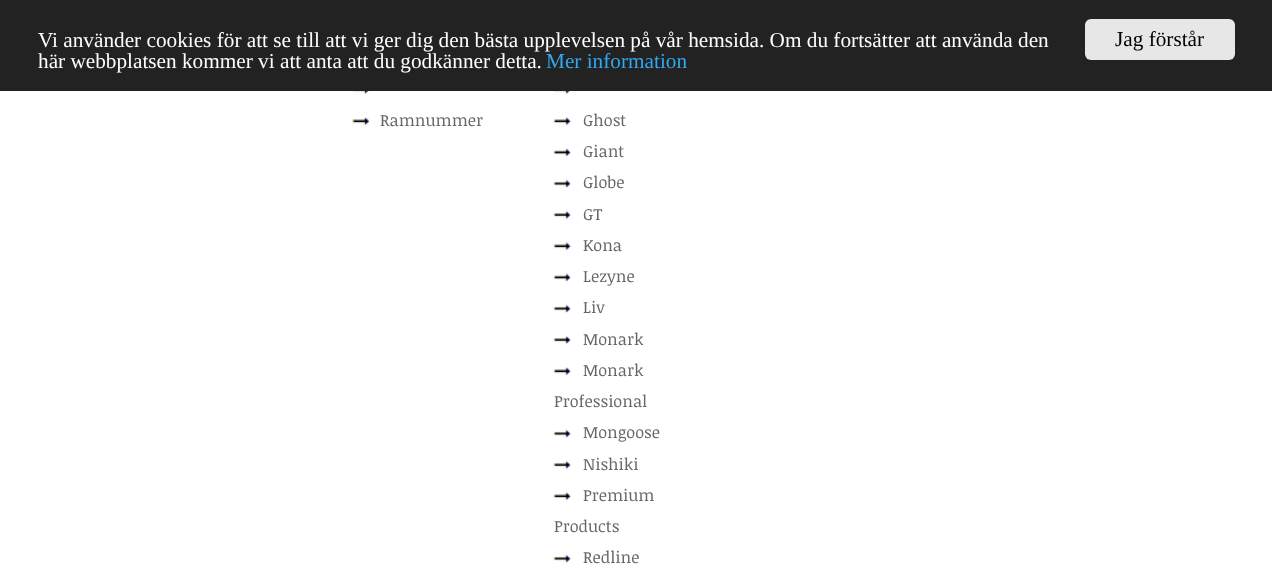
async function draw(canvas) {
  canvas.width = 1272
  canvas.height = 578
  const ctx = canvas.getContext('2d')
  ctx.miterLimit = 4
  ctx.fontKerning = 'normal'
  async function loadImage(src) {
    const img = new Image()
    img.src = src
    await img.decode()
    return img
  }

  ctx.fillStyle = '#fff'
  ctx.fillRect(0, 0, 1272, 578)
  ctx.fillStyle = '#222'
  ctx.fillRect(0, 0, 1272, 91)
  ctx.font = '21.25px Liberation Serif'
  ctx.fillStyle = '#fff'
  ctx.fillText('Vi använder cookies för att se till att vi ger dig den bästa upplevelsen på vår hemsida. Om du fortsätter att använda den', 38, 47)
  ctx.fillText('här webbplatsen kommer vi att anta att du godkänner detta.', 38, 68)
  ctx.fillStyle = '#31a8f0'
  ctx.fillText('Mer information', 546, 68)
  ctx.fillStyle = '#e7e7e7'
  ctx.beginPath()
  ctx.roundRect(1085, 19, 150, 41, 6)
  ctx.fill()
  ctx.fillStyle = '#000'
  ctx.fillText('Jag förstår', 1115, 46)
  ctx.drawImage(await loadImage('image0.png'), 352, 91, 18, 4)
  ctx.drawImage(await loadImage('image1.png'), 352, 117, 18, 9)
  ctx.font = '16.25px Noticia Text'
  ctx.fillStyle = '#666'
  ctx.fillText('Ramnummer', 380, 126)
  ctx.drawImage(await loadImage('image2.png'), 553, 91, 19, 4)
  ctx.drawImage(await loadImage('image3.png'), 553, 117, 19, 9)
  ctx.fillText('Ghost', 583, 126)
  ctx.drawImage(await loadImage('image4.png'), 553, 148, 19, 9)
  ctx.fillText('Giant', 583, 157)
  ctx.drawImage(await loadImage('image5.png'), 553, 179, 19, 9)
  ctx.fillText('Globe', 583, 188)
  ctx.drawImage(await loadImage('image6.png'), 553, 210, 19, 10)
  ctx.fillText('GT', 583, 220)
  ctx.drawImage(await loadImage('image3.png'), 553, 242, 19, 9)
  ctx.fillText('Kona', 583, 251)
  ctx.drawImage(await loadImage('image4.png'), 553, 273, 19, 9)
  ctx.fillText('Lezyne', 583, 282)
  ctx.drawImage(await loadImage('image5.png'), 553, 304, 19, 9)
  ctx.fillText('Liv', 583, 313)
  ctx.drawImage(await loadImage('image6.png'), 553, 335, 19, 10)
  ctx.fillText('Monark', 583, 345)
  ctx.drawImage(await loadImage('image3.png'), 553, 367, 19, 9)
  ctx.fillText('Monark', 583, 376)
  ctx.fillText('Professional', 554, 407)
  ctx.drawImage(await loadImage('image5.png'), 553, 429, 19, 9)
  ctx.fillText('Mongoose', 583, 438)
  ctx.drawImage(await loadImage('image6.png'), 553, 460, 19, 10)
  ctx.fillText('Nishiki', 583, 470)
  ctx.drawImage(await loadImage('image3.png'), 553, 492, 19, 9)
  ctx.fillText('Premium', 583, 501)
  ctx.fillText('Products', 554, 532)
  ctx.drawImage(await loadImage('image5.png'), 553, 554, 19, 9)
  ctx.fillText('Redline', 583, 563)
}

draw(document.querySelector('canvas'))
